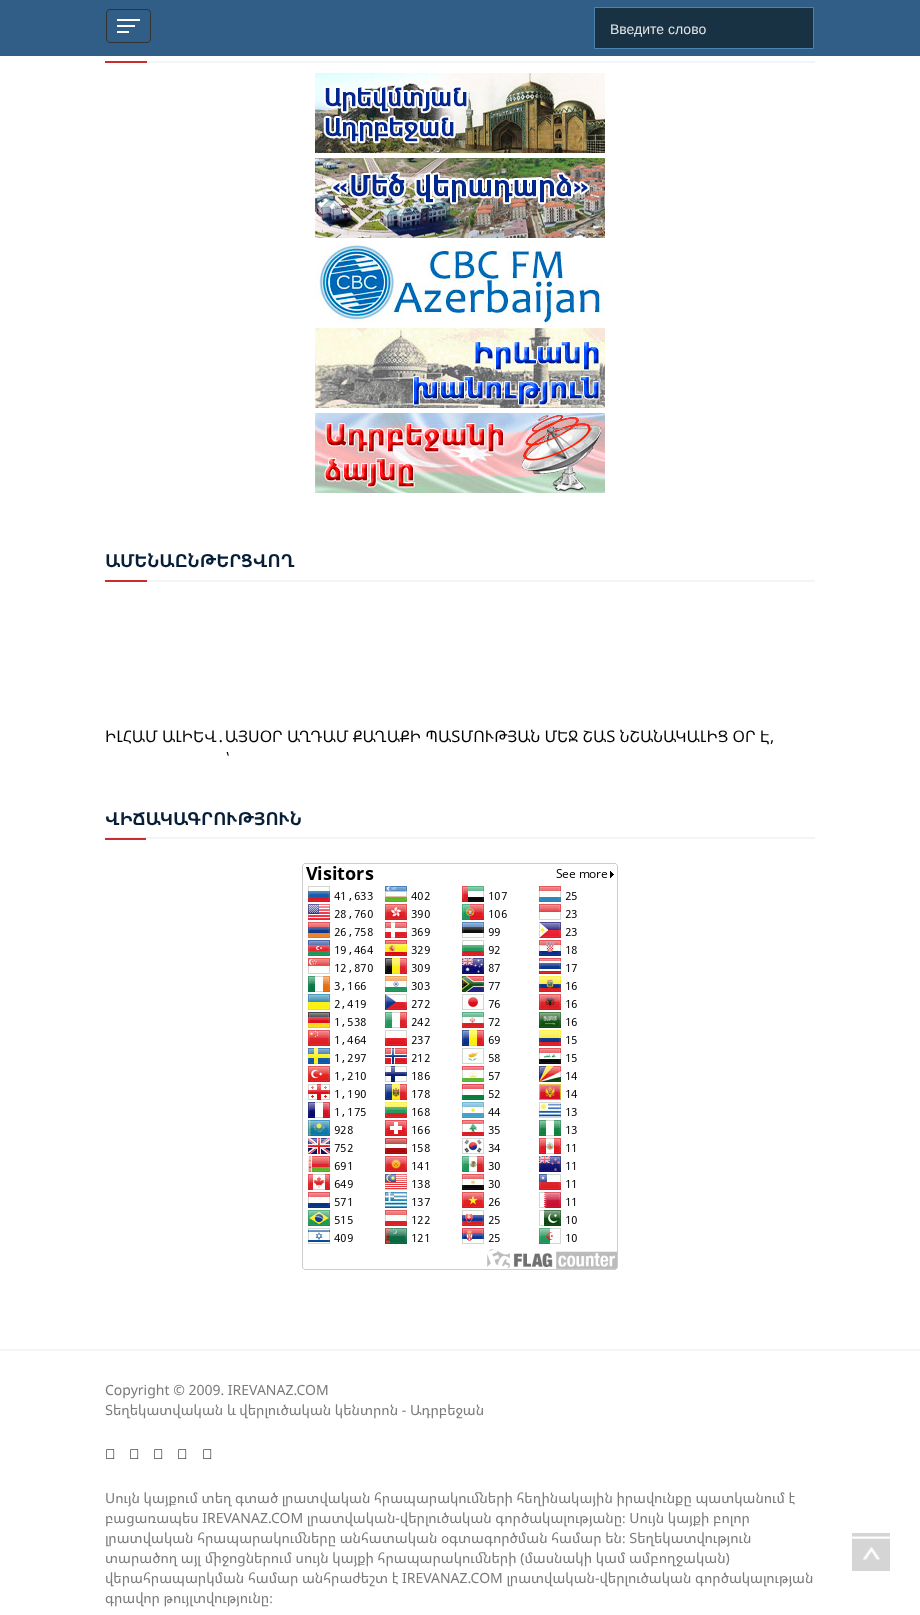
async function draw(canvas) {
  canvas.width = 920
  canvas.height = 1615
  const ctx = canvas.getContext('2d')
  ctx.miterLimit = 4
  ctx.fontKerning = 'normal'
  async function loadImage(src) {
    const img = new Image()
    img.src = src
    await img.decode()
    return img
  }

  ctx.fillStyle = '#fff'
  ctx.fillRect(0, 0, 920, 1615)
  ctx.fillStyle = '#305e86'
  ctx.fillRect(0, 0, 920, 56)
  ctx.beginPath()
  ctx.roundRect(106.5, 9.5, 44, 33, 3.5)
  ctx.strokeStyle = '#333'
  ctx.stroke()
  ctx.fillStyle = '#fff'
  ctx.fillRect(117, 19, 23, 2)
  ctx.fillRect(117, 25, 18, 2)
  ctx.fillRect(117, 31, 12, 2)
  ctx.fillStyle = '#183243'
  ctx.beginPath()
  ctx.rect(594.5, 7.5, 219, 41)
  ctx.fill()
  ctx.strokeStyle = '#4d83b2'
  ctx.stroke()
  ctx.font = '14px Liberation Sans'
  ctx.fillStyle = '#e3e3e3'
  ctx.fillText('Введите слово', 610, 34)
  ctx.fillStyle = '#f2f4f5'
  ctx.fillRect(147, 61, 668, 2)
  ctx.fillStyle = '#c92d2d'
  ctx.fillRect(105, 61, 42, 2)
  ctx.drawImage(await loadImage('image0.png'), 315, 73, 290, 80)
  ctx.drawImage(await loadImage('image1.png'), 315, 158, 290, 80)
  ctx.drawImage(await loadImage('image2.png'), 315, 243, 288, 80)
  ctx.drawImage(await loadImage('image3.png'), 315, 328, 290, 80)
  ctx.drawImage(await loadImage('image4.png'), 315, 413, 290, 80)
  ctx.fillStyle = '#f2f4f5'
  ctx.fillRect(147, 580, 668, 2)
  ctx.font = 'bold 18px Noto Sans Armenian'
  ctx.fillStyle = '#061f37'
  ctx.fillText('ԱՄԵՆԱԸՆԹԵՐՑՎՈՂ', 105, 567)
  ctx.fillStyle = '#c92d2d'
  ctx.fillRect(105, 580, 42, 2)
  ctx.font = '16px Noto Sans Armenian'
  ctx.fillStyle = '#000'
  ctx.fillText('ԻԼՀԱՄ ԱԼԻԵՎ․ԱՅՍՕՐ ԱՂԴԱՄ ՔԱՂԱՔԻ ՊԱՏՄՈՒԹՅԱՆ ՄԵՋ ՇԱՏ ՆՇԱՆԱԿԱԼԻՑ ՕՐ Է,', 105, 742)
  ctx.fillText('՝', 226, 765)
  ctx.fillStyle = '#f2f4f5'
  ctx.fillRect(105, 837, 710, 2)
  ctx.font = 'bold 18px Noto Sans Armenian'
  ctx.fillStyle = '#061f37'
  ctx.fillText('ՎԻՃԱԿԱԳՐՈՒԹՅՈՒՆ', 105, 825)
  ctx.fillStyle = '#c92d2d'
  ctx.fillRect(105, 838, 41, 2)
  ctx.drawImage(await loadImage('image5.png'), 302, 863, 316, 407)
  ctx.fillStyle = '#f2f4f5'
  ctx.fillRect(0, 1349, 920, 2)
  ctx.font = '14px Noto Sans Armenian'
  ctx.fillStyle = '#7a7a7a'
  ctx.fillText('Copyright © 2009. IREVANAZ.COM', 105, 1395)
  ctx.fillText('Տեղեկատվական և վերլուծական կենտրոն - Ադրբեջան', 105, 1415)
  ctx.drawImage(await loadImage('image6.png'), 106, 1449, 9, 10)
  ctx.drawImage(await loadImage('image6.png'), 130, 1449, 9, 10)
  ctx.drawImage(await loadImage('image6.png'), 154, 1449, 9, 10)
  ctx.drawImage(await loadImage('image6.png'), 178, 1449, 9, 10)
  ctx.drawImage(await loadImage('image6.png'), 203, 1449, 9, 10)
  ctx.fillText('Սույն կայքում տեղ գտած լրատվական հրապարակումների հեղինակային իրավունքը պատկանում է', 105, 1503)
  ctx.fillText('բացառապես IREVANAZ.COM լրատվական-վերլուծական գործակալությանը։ Սույն կայքի բոլոր', 105, 1523)
  ctx.fillText('լրատվական հրապարակումները անհատական օգտագործման համար են։ Տեղեկատվություն', 105, 1543)
  ctx.fillText('տարածող այլ միջոցներում սույն կայքի հրապարակումների (մասնակի կամ ամբողջական)', 105, 1563)
  ctx.fillText('վերահրապարկման համար անհրաժեշտ է IREVANAZ.COM լրատվական-վերլուծական գործակալության', 105, 1583)
  ctx.fillText('գրավոր թույլտվությունը։', 105, 1603)
  ctx.drawImage(await loadImage('image7.png'), 852, 1533, 38, 38)
}

draw(document.querySelector('canvas'))
